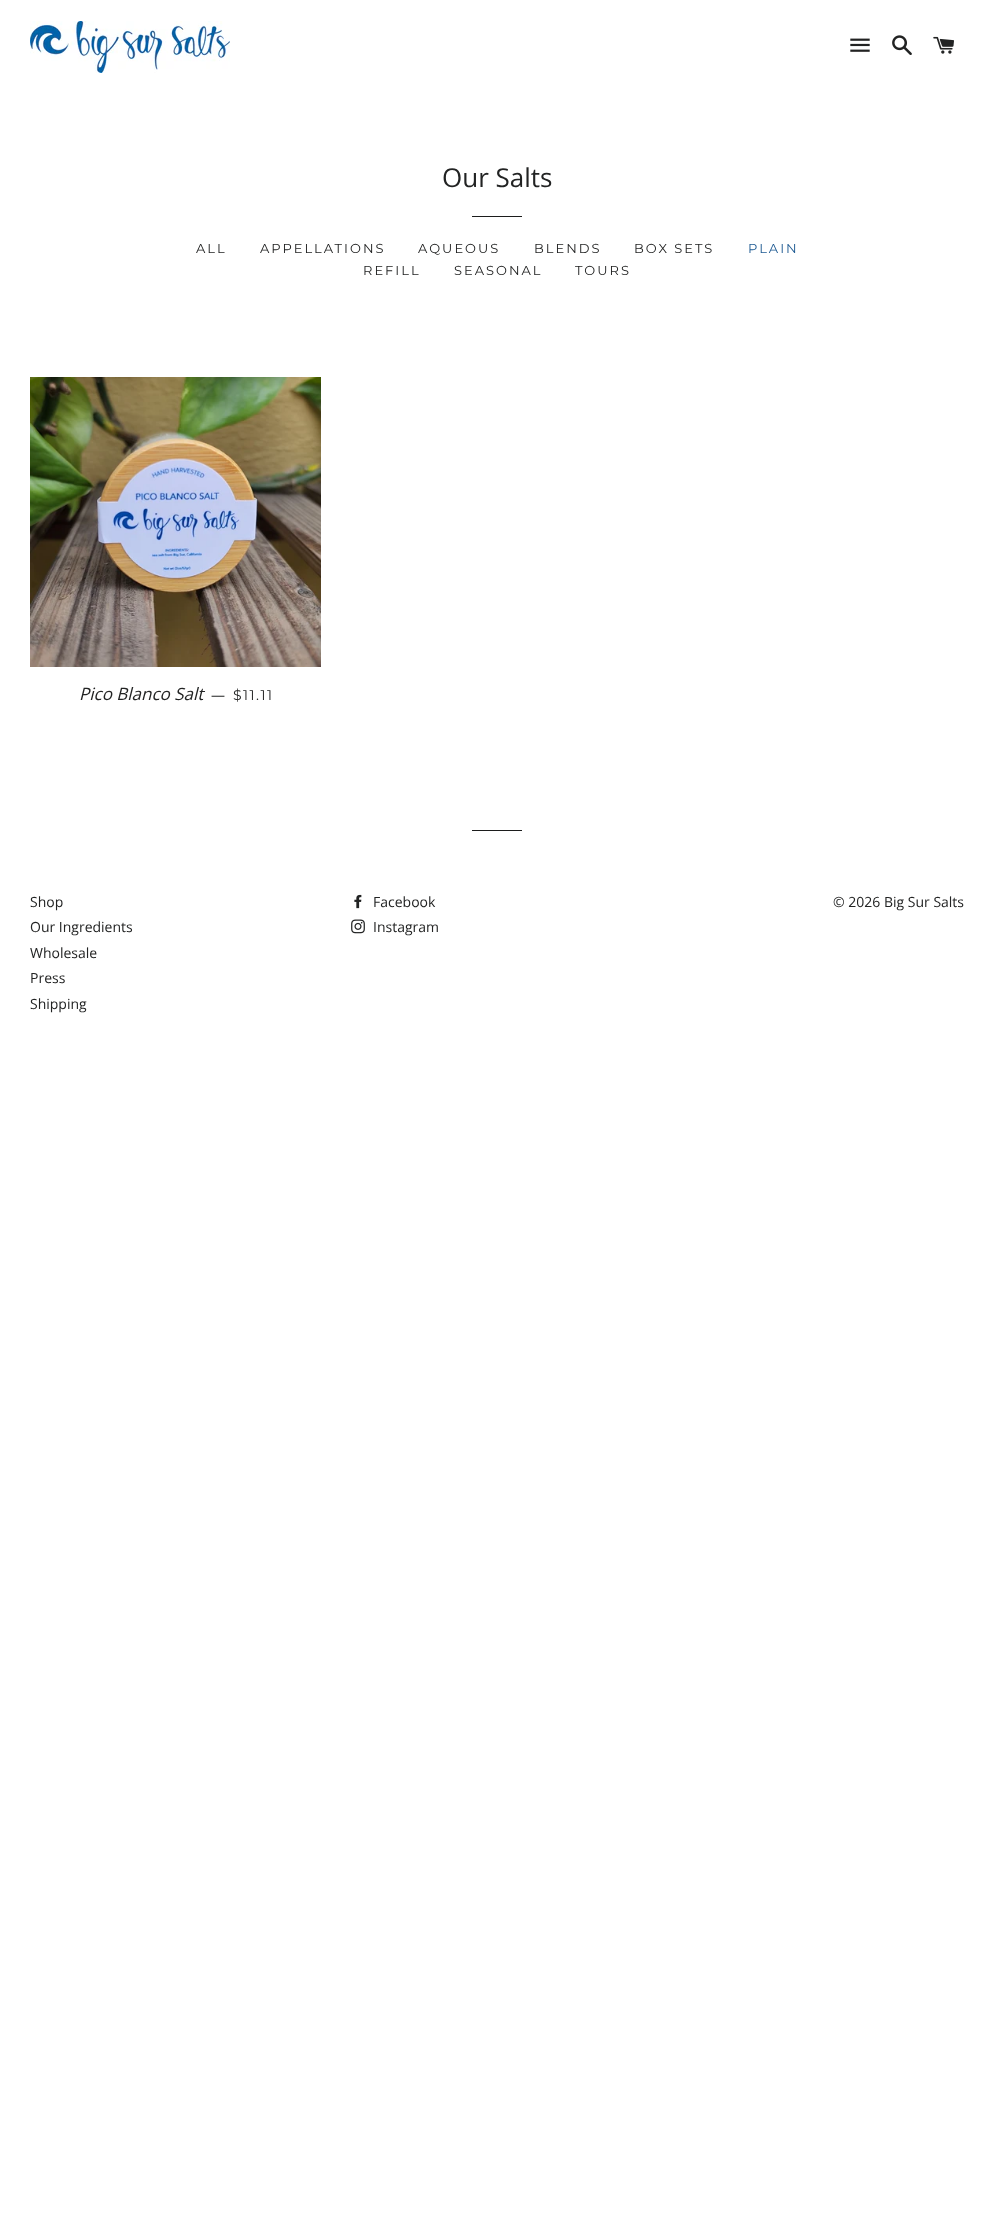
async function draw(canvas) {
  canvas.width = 994
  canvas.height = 2224
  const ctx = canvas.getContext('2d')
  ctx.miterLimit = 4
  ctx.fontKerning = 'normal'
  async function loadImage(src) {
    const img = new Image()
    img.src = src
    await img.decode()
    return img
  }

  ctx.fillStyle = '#fff'
  ctx.fillRect(0, 0, 994, 2224)
  ctx.drawImage(await loadImage('image0.png'), 30, 21, 200, 52)
  ctx.drawImage(await loadImage('image1.png'), 850, 38, 20, 14)
  ctx.drawImage(await loadImage('image2.png'), 892, 35, 20, 20)
  ctx.drawImage(await loadImage('image3.png'), 933, 36, 21, 18)
  ctx.font = '26px Open Sans'
  ctx.fillStyle = '#222323'
  ctx.fillText('Our Salts', 442, 187)
  ctx.fillStyle = '#1c1d1d'
  ctx.fillRect(472, 216, 50, 1)
  ctx.letterSpacing = '2px'
  ctx.font = '100 13px Montserrat'
  ctx.fillStyle = '#222323'
  ctx.fillText('ALL', 196, 253)
  ctx.fillText('APPELLATIONS', 260, 253)
  ctx.fillText('AQUEOUS', 418, 253)
  ctx.fillText('BLENDS', 534, 253)
  ctx.fillText('BOX SETS', 634, 253)
  ctx.fillStyle = '#1e5a92'
  ctx.fillText('PLAIN', 748, 253)
  ctx.fillStyle = '#222323'
  ctx.fillText('REFILL', 363, 275)
  ctx.fillText('SEASONAL', 454, 275)
  ctx.fillText('TOURS', 575, 275)
  ctx.drawImage(await loadImage('image4.png'), 30, 377, 291, 290)
  ctx.letterSpacing = '0px'
  ctx.font = 'italic 17px Open Sans'
  ctx.fillText('Pico Blanco Salt', 79, 700)
  ctx.font = '14px Open Sans'
  ctx.fillText('—', 211, 700)
  ctx.letterSpacing = '1.5px'
  ctx.font = '100 14px Montserrat'
  ctx.fillText('$11.11', 233, 700)
  ctx.fillStyle = '#1c1d1d'
  ctx.fillRect(472, 830, 50, 1)
  ctx.letterSpacing = '0px'
  ctx.font = '14px Open Sans'
  ctx.fillStyle = '#222323'
  ctx.fillText('Shop', 30, 907)
  ctx.fillText('Our Ingredients', 30, 932)
  ctx.fillText('Wholesale', 30, 958)
  ctx.fillText('Press', 30, 983)
  ctx.fillText('Shipping', 30, 1009)
  ctx.drawImage(await loadImage('image5.png'), 354, 894, 8, 15)
  ctx.fillText('Facebook', 373, 907)
  ctx.drawImage(await loadImage('image6.png'), 351, 919, 14, 15)
  ctx.fillText('Instagram', 373, 932)
  ctx.fillText('© 2026 Big Sur Salts', 833, 907)
}

draw(document.querySelector('canvas'))
